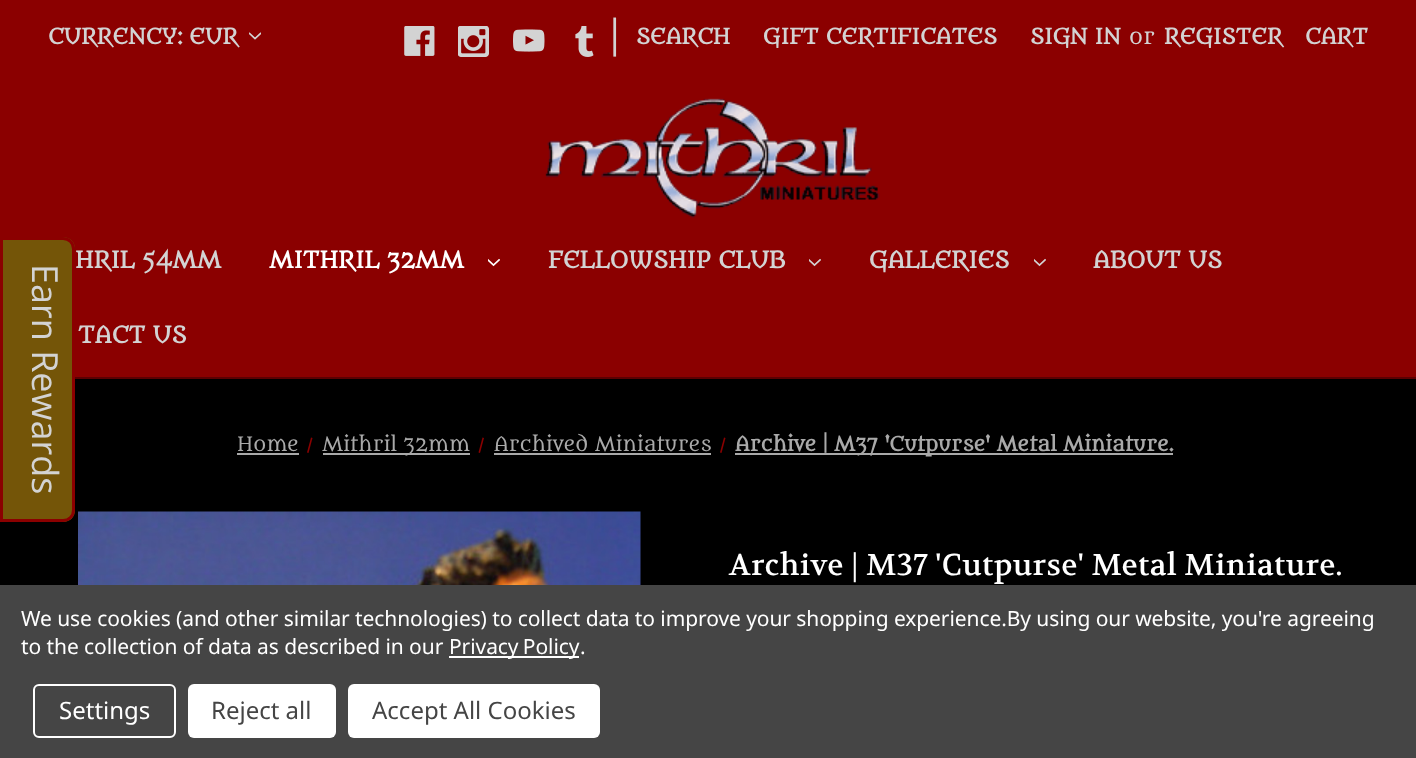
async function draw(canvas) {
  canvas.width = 1416
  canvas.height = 758
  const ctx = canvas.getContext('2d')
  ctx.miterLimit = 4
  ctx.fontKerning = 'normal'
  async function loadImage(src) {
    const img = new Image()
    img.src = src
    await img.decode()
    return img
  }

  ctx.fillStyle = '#000'
  ctx.fillRect(0, 0, 1416, 758)
  ctx.fillStyle = '#8b0000'
  ctx.fillRect(0, 0, 1416, 377)
  ctx.fillStyle = '#5c0002'
  ctx.fillRect(75, 377, 1341, 2)
  ctx.font = 'bold 21px Metamorphous'
  ctx.fillStyle = '#d3d3d3'
  ctx.fillText('CURRENCY: EUR', 48, 44)
  ctx.drawImage(await loadImage('image0.png'), 249, 32, 12, 8)
  ctx.drawImage(await loadImage('image1.png'), 404, 26, 31, 30)
  ctx.drawImage(await loadImage('image2.png'), 458, 26, 31, 31)
  ctx.drawImage(await loadImage('image3.png'), 513, 29, 32, 23)
  ctx.drawImage(await loadImage('image4.png'), 575, 26, 19, 31)
  ctx.font = '38px Metamorphous'
  ctx.fillText('|', 610, 53)
  ctx.font = 'bold 21px Metamorphous'
  ctx.fillText('SEARCH', 636, 44)
  ctx.fillText('GIFT CERTIFICATES', 763, 44)
  ctx.fillText('SIGN IN', 1030, 44)
  ctx.font = '21px Metamorphous'
  ctx.fillText('or', 1129, 44)
  ctx.font = 'bold 21px Metamorphous'
  ctx.fillText('REGISTER', 1164, 44)
  ctx.fillText('CART', 1305, 44)
  ctx.drawImage(await loadImage('image5.png'), 545, 98, 335, 120)
  ctx.font = 'bold 22.5px Metamorphous'
  ctx.fillText('HRIL 54MM', 75, 268)
  ctx.fillStyle = '#fff'
  ctx.fillText('MITHRIL 32MM', 269, 268)
  ctx.drawImage(await loadImage('image6.png'), 488, 258, 12, 9)
  ctx.fillStyle = '#d3d3d3'
  ctx.fillText('FELLOWSHIP CLUB', 548, 268)
  ctx.drawImage(await loadImage('image7.png'), 809, 258, 12, 9)
  ctx.fillText('GALLERIES', 869, 268)
  ctx.drawImage(await loadImage('image7.png'), 1034, 258, 12, 9)
  ctx.fillText('ABOUT US', 1093, 268)
  ctx.fillText('TACT US', 78, 343)
  ctx.fillStyle = '#745508'
  ctx.beginPath()
  ctx.moveTo(75, 249)
  ctx.lineTo(75, 510)
  ctx.bezierCurveTo(75, 517, 70, 522, 63, 522)
  ctx.lineTo(0, 522)
  ctx.lineTo(0, 237)
  ctx.lineTo(63, 237)
  ctx.bezierCurveTo(70, 237, 75, 242, 75, 249)
  ctx.closePath()
  ctx.fill()
  ctx.beginPath()
  ctx.moveTo(73.5, 249)
  ctx.lineTo(73.5, 510)
  ctx.bezierCurveTo(73.5, 516, 69, 520.5, 63, 520.5)
  ctx.lineTo(1.5, 520.5)
  ctx.lineTo(1.5, 238.5)
  ctx.lineTo(63, 238.5)
  ctx.bezierCurveTo(69, 238.5, 73.5, 243, 73.5, 249)
  ctx.closePath()
  ctx.strokeStyle = '#8b0000'
  ctx.lineWidth = 3
  ctx.stroke()
  ctx.font = '36px Open Sans'
  ctx.fillStyle = '#d3d3d3'
  ctx.save()
  ctx.translate(32, 264)
  ctx.rotate(90 * Math.PI / 180)
  ctx.fillText('Earn Rewards', 0, 0)
  ctx.restore()
  ctx.font = '19.5px Metamorphous'
  ctx.fillStyle = '#a9a9a9'
  ctx.fillText('Home', 237, 451)
  ctx.fillRect(237, 453, 62, 2)
  ctx.fillStyle = '#8b0000'
  ctx.beginPath()
  ctx.moveTo(311, 437.5)
  ctx.lineTo(312.5, 438)
  ctx.lineTo(308.5, 453)
  ctx.lineTo(307, 452.5)
  ctx.closePath()
  ctx.fill()
  ctx.fillStyle = '#a9a9a9'
  ctx.fillRect(323, 453, 147, 2)
  ctx.fillText('Mithril 32mm', 322, 451)
  ctx.fillStyle = '#8b0000'
  ctx.beginPath()
  ctx.moveTo(482.5, 437.5)
  ctx.lineTo(484, 438)
  ctx.lineTo(480, 453)
  ctx.lineTo(478.5, 452.5)
  ctx.closePath()
  ctx.fill()
  ctx.fillStyle = '#a9a9a9'
  ctx.fillText('Archived Miniatures', 494, 451)
  ctx.fillRect(494, 453, 217, 2)
  ctx.fillStyle = '#8b0000'
  ctx.beginPath()
  ctx.moveTo(724, 437.5)
  ctx.lineTo(725.5, 438)
  ctx.lineTo(721.5, 453)
  ctx.lineTo(720, 452.5)
  ctx.closePath()
  ctx.fill()
  ctx.fillStyle = '#a9a9a9'
  ctx.fillRect(735, 453, 438, 2)
  ctx.font = 'bold 19.5px Metamorphous'
  ctx.fillText('Archive | M37 \'Cutpurse\' Metal Miniature.', 735, 451)
  ctx.drawImage(await loadImage('image8.png'), 78, 511, 563, 74)
  ctx.letterSpacing = '0.4px'
  ctx.font = '30px Volkhov'
  ctx.fillStyle = '#fff'
  ctx.fillText('Archive | M37 \'Cutpurse\' Metal Miniature.', 729, 575)
  ctx.fillStyle = '#454545'
  ctx.fillRect(0, 585, 1416, 173)
  ctx.letterSpacing = '-0.08px'
  ctx.font = '21px Noto Sans'
  ctx.fillStyle = '#fff'
  ctx.fillText('We use cookies (and other similar technologies) to collect data to improve your shopping experience.By using our website, you\'re agreeing', 21, 626)
  ctx.fillText('to the collection of data as described in our', 21, 654)
  ctx.fillRect(449, 656, 130, 2)
  ctx.wordSpacing = '-1px'
  ctx.fillText('Privacy Policy', 449, 654)
  ctx.wordSpacing = '0px'
  ctx.fillText('.', 580, 654)
  ctx.beginPath()
  ctx.roundRect(34, 685, 141, 52, 5)
  ctx.strokeStyle = '#fff'
  ctx.lineWidth = 2
  ctx.stroke()
  ctx.letterSpacing = '0px'
  ctx.font = '24px Noto Sans'
  ctx.fillText('Settings', 59, 719)
  ctx.beginPath()
  ctx.roundRect(188, 684, 148, 54, 6)
  ctx.fill()
  ctx.fillStyle = '#454545'
  ctx.fillText('Reject all', 211, 719)
  ctx.fillStyle = '#fff'
  ctx.beginPath()
  ctx.roundRect(348, 684, 252, 54, 6)
  ctx.fill()
  ctx.fillStyle = '#454545'
  ctx.fillText('Accept All Cookies', 372, 719)
}

draw(document.querySelector('canvas'))
